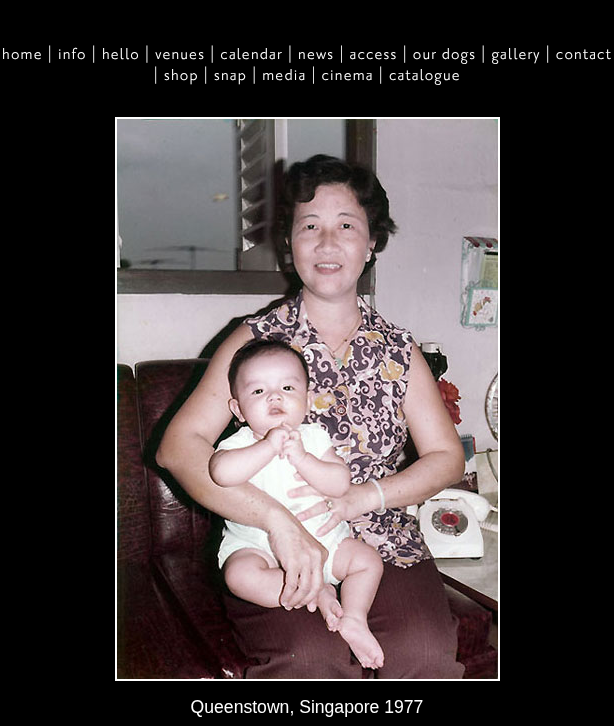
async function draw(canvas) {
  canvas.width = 614
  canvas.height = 726
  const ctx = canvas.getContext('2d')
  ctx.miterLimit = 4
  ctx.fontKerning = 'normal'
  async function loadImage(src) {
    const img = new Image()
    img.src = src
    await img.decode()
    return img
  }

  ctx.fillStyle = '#000'
  ctx.fillRect(0, 0, 614, 726)
  ctx.drawImage(await loadImage('image0.png'), 3, 45, 608, 672)
}

draw(document.querySelector('canvas'))
